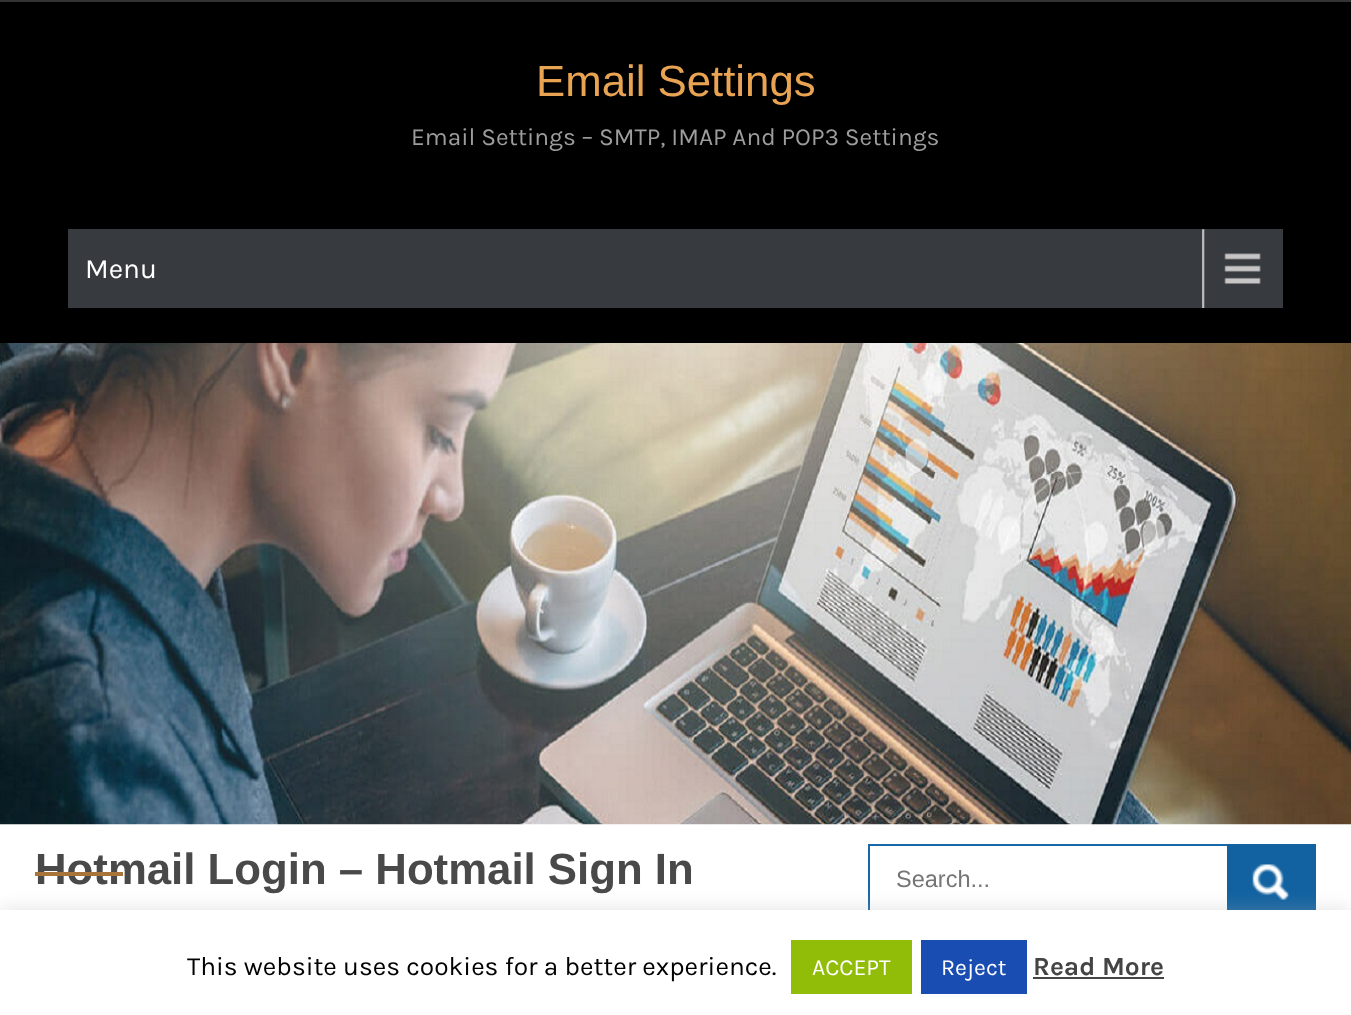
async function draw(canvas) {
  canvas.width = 1351
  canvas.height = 1015
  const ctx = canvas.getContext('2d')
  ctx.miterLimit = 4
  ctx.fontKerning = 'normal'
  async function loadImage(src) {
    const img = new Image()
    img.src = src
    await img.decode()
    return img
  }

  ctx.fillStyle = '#fff'
  ctx.fillRect(0, 0, 1351, 1015)
  ctx.fillStyle = '#000'
  ctx.fillRect(0, 2, 1351, 341)
  ctx.fillStyle = '#333'
  ctx.fillRect(0, 0, 1351, 2)
  ctx.font = '43.75px Liberation Sans'
  ctx.fillStyle = '#e9a453'
  ctx.fillText('Email Settings', 536, 96)
  ctx.font = '24.5px Karla'
  ctx.fillStyle = '#9d9d9d'
  ctx.fillText('Email Settings – SMTP, IMAP And POP3 Settings', 411, 145)
  ctx.fillStyle = '#373a3f'
  ctx.fillRect(68, 229, 1215, 79)
  ctx.drawImage(await loadImage('image0.png'), 1202, 229, 59, 79)
  ctx.font = '28px Karla'
  ctx.fillStyle = '#fff'
  ctx.fillText('Menu', 85, 278)
  ctx.drawImage(await loadImage('image1.png'), 0, 343, 1351, 482)
  ctx.font = 'bold 43.75px Liberation Sans'
  ctx.fillStyle = '#4a4949'
  ctx.fillText('Hotmail Login – Hotmail Sign In', 35, 884)
  ctx.fillStyle = '#a7753a'
  ctx.fillRect(35, 872, 88, 4)
  ctx.fillStyle = '#1768a8'
  ctx.fillRect(868, 844, 359, 2)
  ctx.fillRect(868, 844, 2, 71)
  ctx.font = '23.5px Liberation Sans'
  ctx.fillStyle = '#757575'
  ctx.fillText('Search...', 896, 887)
  ctx.fillStyle = '#1262a1'
  ctx.fillRect(1227, 844, 89, 66)
  ctx.drawImage(await loadImage('image2.png'), 1252, 864, 37, 36)
  ctx.fillStyle = '#acabab4d'
  ctx.filter = 'blur(9px)'
  ctx.beginPath()
  ctx.rect(0, 908, 1351, 105)
  ctx.fill()
  ctx.filter = 'none'
  ctx.fillStyle = '#fff'
  ctx.fillRect(0, 910, 1351, 105)
  ctx.font = '26.25px Karla'
  ctx.fillStyle = '#000'
  ctx.fillText('This website uses cookies for a better experience.', 187, 975)
  ctx.fillStyle = '#91bd09'
  ctx.fillRect(791, 940, 121, 54)
  ctx.font = '23px Karla'
  ctx.fillStyle = '#fff'
  ctx.fillText('ACCEPT', 812, 975)
  ctx.fillStyle = '#1a4db2'
  ctx.fillRect(921, 940, 106, 54)
  ctx.fillStyle = '#fff'
  ctx.fillText('Reject', 941, 975)
  ctx.font = 'bold 26.25px Karla'
  ctx.fillStyle = '#444'
  ctx.fillText('Read More', 1033, 975)
  ctx.fillRect(1033, 977, 131, 2)
}

draw(document.querySelector('canvas'))
